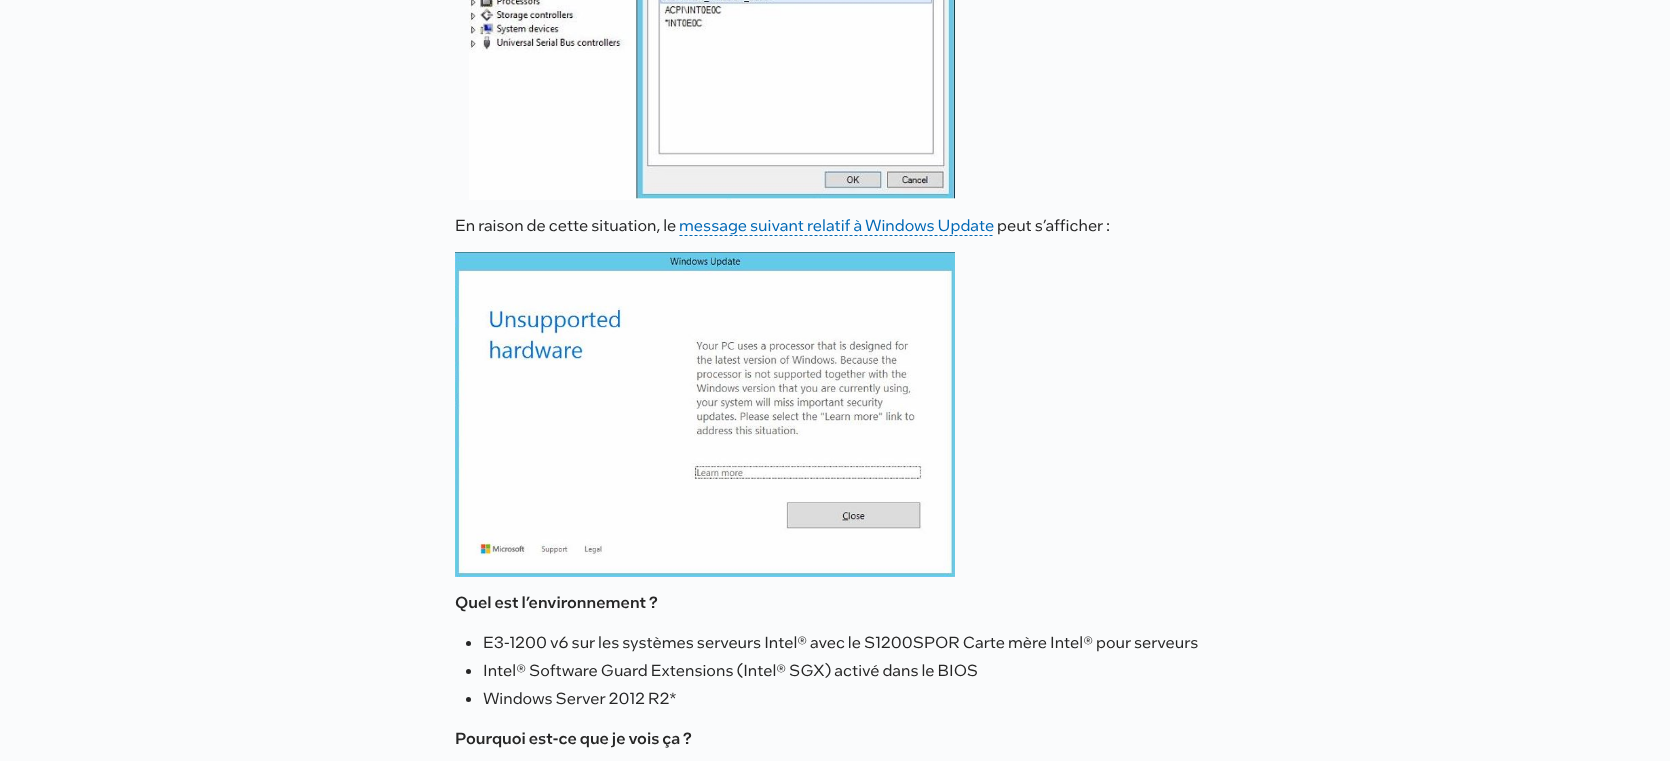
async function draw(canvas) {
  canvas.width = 1670
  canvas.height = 761
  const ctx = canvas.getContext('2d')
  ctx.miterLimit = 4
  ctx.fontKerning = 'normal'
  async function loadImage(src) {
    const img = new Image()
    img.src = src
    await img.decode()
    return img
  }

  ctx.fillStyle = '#fafbfc'
  ctx.fillRect(0, 0, 1670, 761)
  ctx.drawImage(await loadImage('image0.png'), 469, 0, 486, 200)
  ctx.font = '16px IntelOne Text'
  ctx.fillStyle = '#262626'
  ctx.fillText('En raison de cette situation, le', 455, 231)
  ctx.fillStyle = '#0068b5'
  ctx.fillText('message suivant relatif à Windows Update', 679, 231)
  ctx.beginPath()
  ctx.moveTo(679.5, 235.5)
  ctx.lineTo(994.5, 235.5)
  ctx.strokeStyle = '#0068b5'
  ctx.setLineDash([3, 2])
  ctx.stroke()
  ctx.fillStyle = '#262626'
  ctx.fillText('peut s’afficher :', 997, 231)
  ctx.drawImage(await loadImage('image1.png'), 455, 252, 500, 325)
  ctx.font = '500 16px IntelOne Text'
  ctx.fillText('Quel est l’environnement ?', 455, 608)
  ctx.beginPath()
  ctx.arc(468.5, 643.5, 2.5, 0, 2 * Math.PI)
  ctx.fill()
  ctx.font = '16px IntelOne Text'
  ctx.fillText('E3-1200 v6 sur les systèmes serveurs Intel® avec le S1200SPOR Carte mère Intel® pour serveurs', 483, 648)
  ctx.beginPath()
  ctx.arc(468.5, 671.5, 2.5, 0, 2 * Math.PI)
  ctx.fill()
  ctx.fillText('Intel® Software Guard Extensions (Intel® SGX) activé dans le BIOS', 483, 676)
  ctx.beginPath()
  ctx.arc(468.5, 699.5, 2.5, 0, 2 * Math.PI)
  ctx.fill()
  ctx.fillText('Windows Server 2012 R2*', 483, 704)
  ctx.font = '500 16px IntelOne Text'
  ctx.fillText('Pourquoi est-ce que je vois ça ?', 455, 744)
}

draw(document.querySelector('canvas'))
